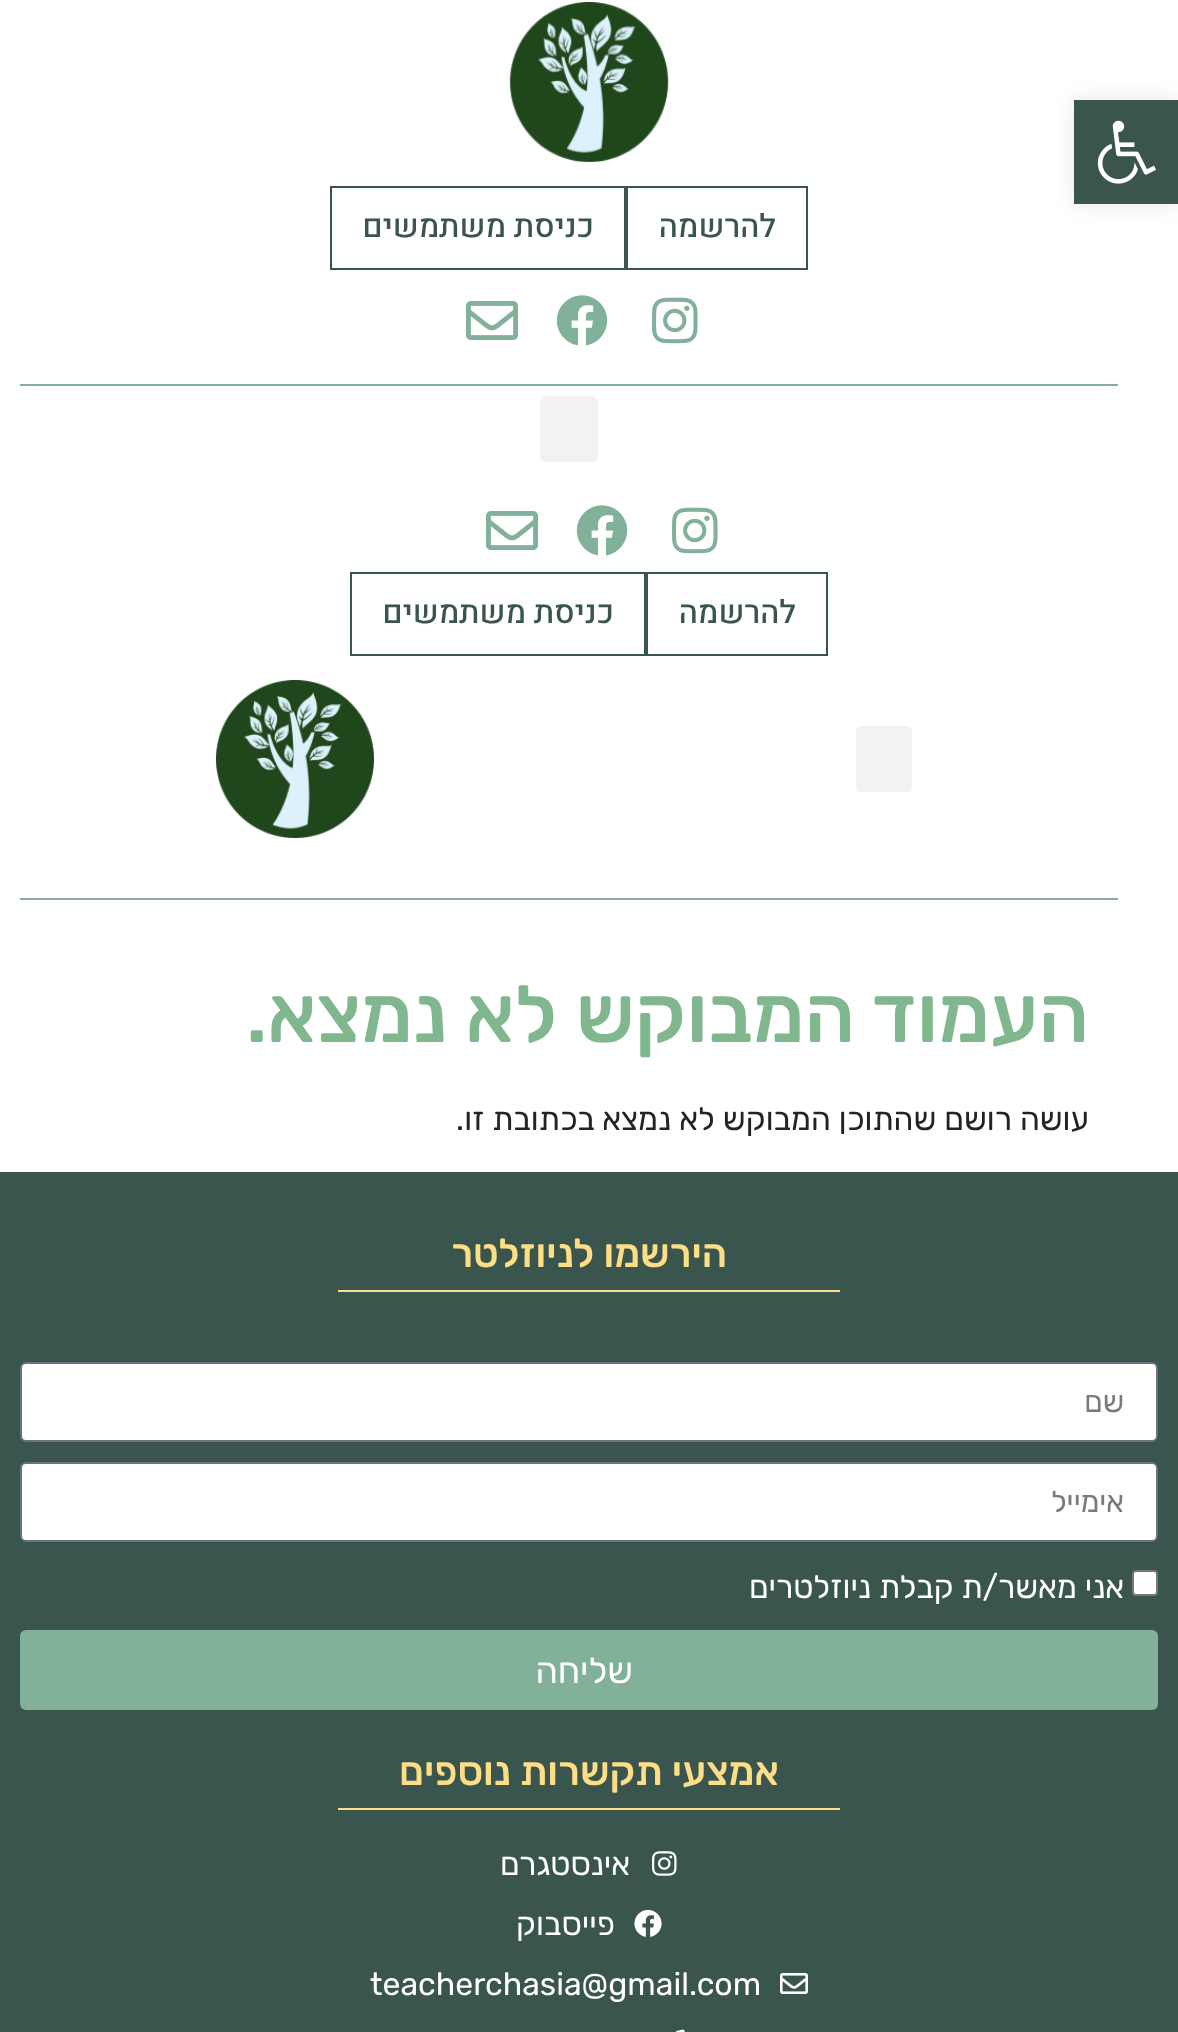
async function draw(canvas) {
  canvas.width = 1178
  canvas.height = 2032
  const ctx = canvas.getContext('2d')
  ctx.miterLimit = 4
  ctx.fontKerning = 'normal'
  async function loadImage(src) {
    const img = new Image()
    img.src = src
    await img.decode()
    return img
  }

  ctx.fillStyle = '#fff'
  ctx.fillRect(0, 0, 1178, 2032)
  ctx.fillStyle = '#0000001a'
  ctx.filter = 'blur(10px)'
  ctx.beginPath()
  ctx.rect(1074, 100, 104, 104)
  ctx.fill()
  ctx.filter = 'none'
  ctx.fillStyle = '#3a544e'
  ctx.fillRect(1074, 100, 104, 104)
  ctx.drawImage(await loadImage('image0.png'), 1097, 120, 59, 64)
  ctx.drawImage(await loadImage('image1.png'), 509, 2, 160, 160)
  ctx.strokeStyle = '#3a544e'
  ctx.lineWidth = 2
  ctx.strokeRect(627, 187, 180, 82)
  ctx.direction = 'rtl'
  ctx.font = '500 32px Heebo'
  ctx.fillText('להרשמה', 776, 237)
  ctx.strokeRect(331, 187, 294, 82)
  ctx.fillText('כניסת משתמשים', 594, 237)
  ctx.drawImage(await loadImage('image2.png'), 652, 297, 46, 47)
  ctx.drawImage(await loadImage('image3.png'), 556, 295, 52, 51)
  ctx.drawImage(await loadImage('image4.png'), 466, 301, 52, 39)
  ctx.fillStyle = '#81b199'
  ctx.fillRect(20, 384, 1098, 2)
  ctx.fillStyle = '#f2f2f2'
  ctx.beginPath()
  ctx.roundRect(540, 396, 58, 66, 6)
  ctx.fill()
  ctx.drawImage(await loadImage('image2.png'), 672, 507, 46, 47)
  ctx.drawImage(await loadImage('image3.png'), 576, 505, 52, 51)
  ctx.drawImage(await loadImage('image4.png'), 486, 511, 52, 39)
  ctx.strokeRect(647, 573, 180, 82)
  ctx.fillStyle = '#3a544e'
  ctx.fillText('להרשמה', 796, 623)
  ctx.strokeRect(351, 573, 294, 82)
  ctx.fillText('כניסת משתמשים', 614, 623)
  ctx.fillStyle = '#f2f2f2'
  ctx.beginPath()
  ctx.roundRect(856, 726, 56, 66, 6)
  ctx.fill()
  ctx.drawImage(await loadImage('image5.png'), 216, 680, 158, 158)
  ctx.fillStyle = '#81b199'
  ctx.fillRect(20, 898, 1098, 2)
  ctx.wordSpacing = '0.5px'
  ctx.font = '500 80px Rubik'
  ctx.fillStyle = '#81b78f'
  ctx.fillText('העמוד המבוקש לא נמצא.', 1089, 1042)
  ctx.wordSpacing = '0.25px'
  ctx.font = '32px Rubik'
  ctx.fillStyle = '#272121'
  ctx.fillText('עושה רושם שהתוכן המבוקש לא נמצא בכתובת זו.', 1089, 1130)
  ctx.fillStyle = '#3a554e'
  ctx.fillRect(0, 1172, 1178, 860)
  ctx.wordSpacing = '0px'
  ctx.font = '500 40px Rubik'
  ctx.fillStyle = '#fddd85'
  ctx.fillText('הירשמו לניוזלטר', 727, 1267)
  ctx.fillRect(338, 1290, 502, 2)
  ctx.fillStyle = '#fff'
  ctx.beginPath()
  ctx.roundRect(21, 1363, 1136, 78, 5)
  ctx.fill()
  ctx.strokeStyle = '#69727d'
  ctx.stroke()
  ctx.font = '30px Rubik'
  ctx.fillStyle = '#797a7c'
  ctx.fillText('שם', 1124, 1412)
  ctx.fillStyle = '#fff'
  ctx.beginPath()
  ctx.roundRect(21, 1463, 1136, 78, 5)
  ctx.fill()
  ctx.stroke()
  ctx.fillStyle = '#797a7c'
  ctx.fillText('אימייל', 1124, 1512)
  ctx.fillStyle = '#fff'
  ctx.beginPath()
  ctx.roundRect(1133, 1571, 24, 24, 3)
  ctx.fill()
  ctx.strokeStyle = '#767676'
  ctx.stroke()
  ctx.font = '32px Rubik'
  ctx.fillText('אני מאשר/ת קבלת ניוזלטרים', 1124, 1598)
  ctx.fillStyle = '#81b199'
  ctx.beginPath()
  ctx.roundRect(20, 1630, 1138, 80, 6)
  ctx.fill()
  ctx.font = '36px Rubik'
  ctx.fillStyle = '#fff'
  ctx.fillText('שליחה', 633, 1683)
  ctx.font = '500 40px Rubik'
  ctx.fillStyle = '#fddd85'
  ctx.fillText('אמצעי תקשרות נוספים', 779, 1785)
  ctx.fillRect(338, 1808, 502, 2)
  ctx.drawImage(await loadImage('image6.png'), 652, 1851, 25, 25)
  ctx.font = '32px Rubik'
  ctx.fillStyle = '#fff'
  ctx.fillText('אינסטגרם', 630, 1875)
  ctx.drawImage(await loadImage('image7.png'), 634, 1909, 28, 28)
  ctx.fillText('פייסבוק', 615, 1935)
  ctx.drawImage(await loadImage('image8.png'), 780, 1973, 28, 21)
  ctx.direction = 'ltr'
  ctx.fillText('teacherchasia@gmail.com', 370, 1995)
  ctx.drawImage(await loadImage('image9.png'), 676, 2029, 9, 3)
}

draw(document.querySelector('canvas'))
